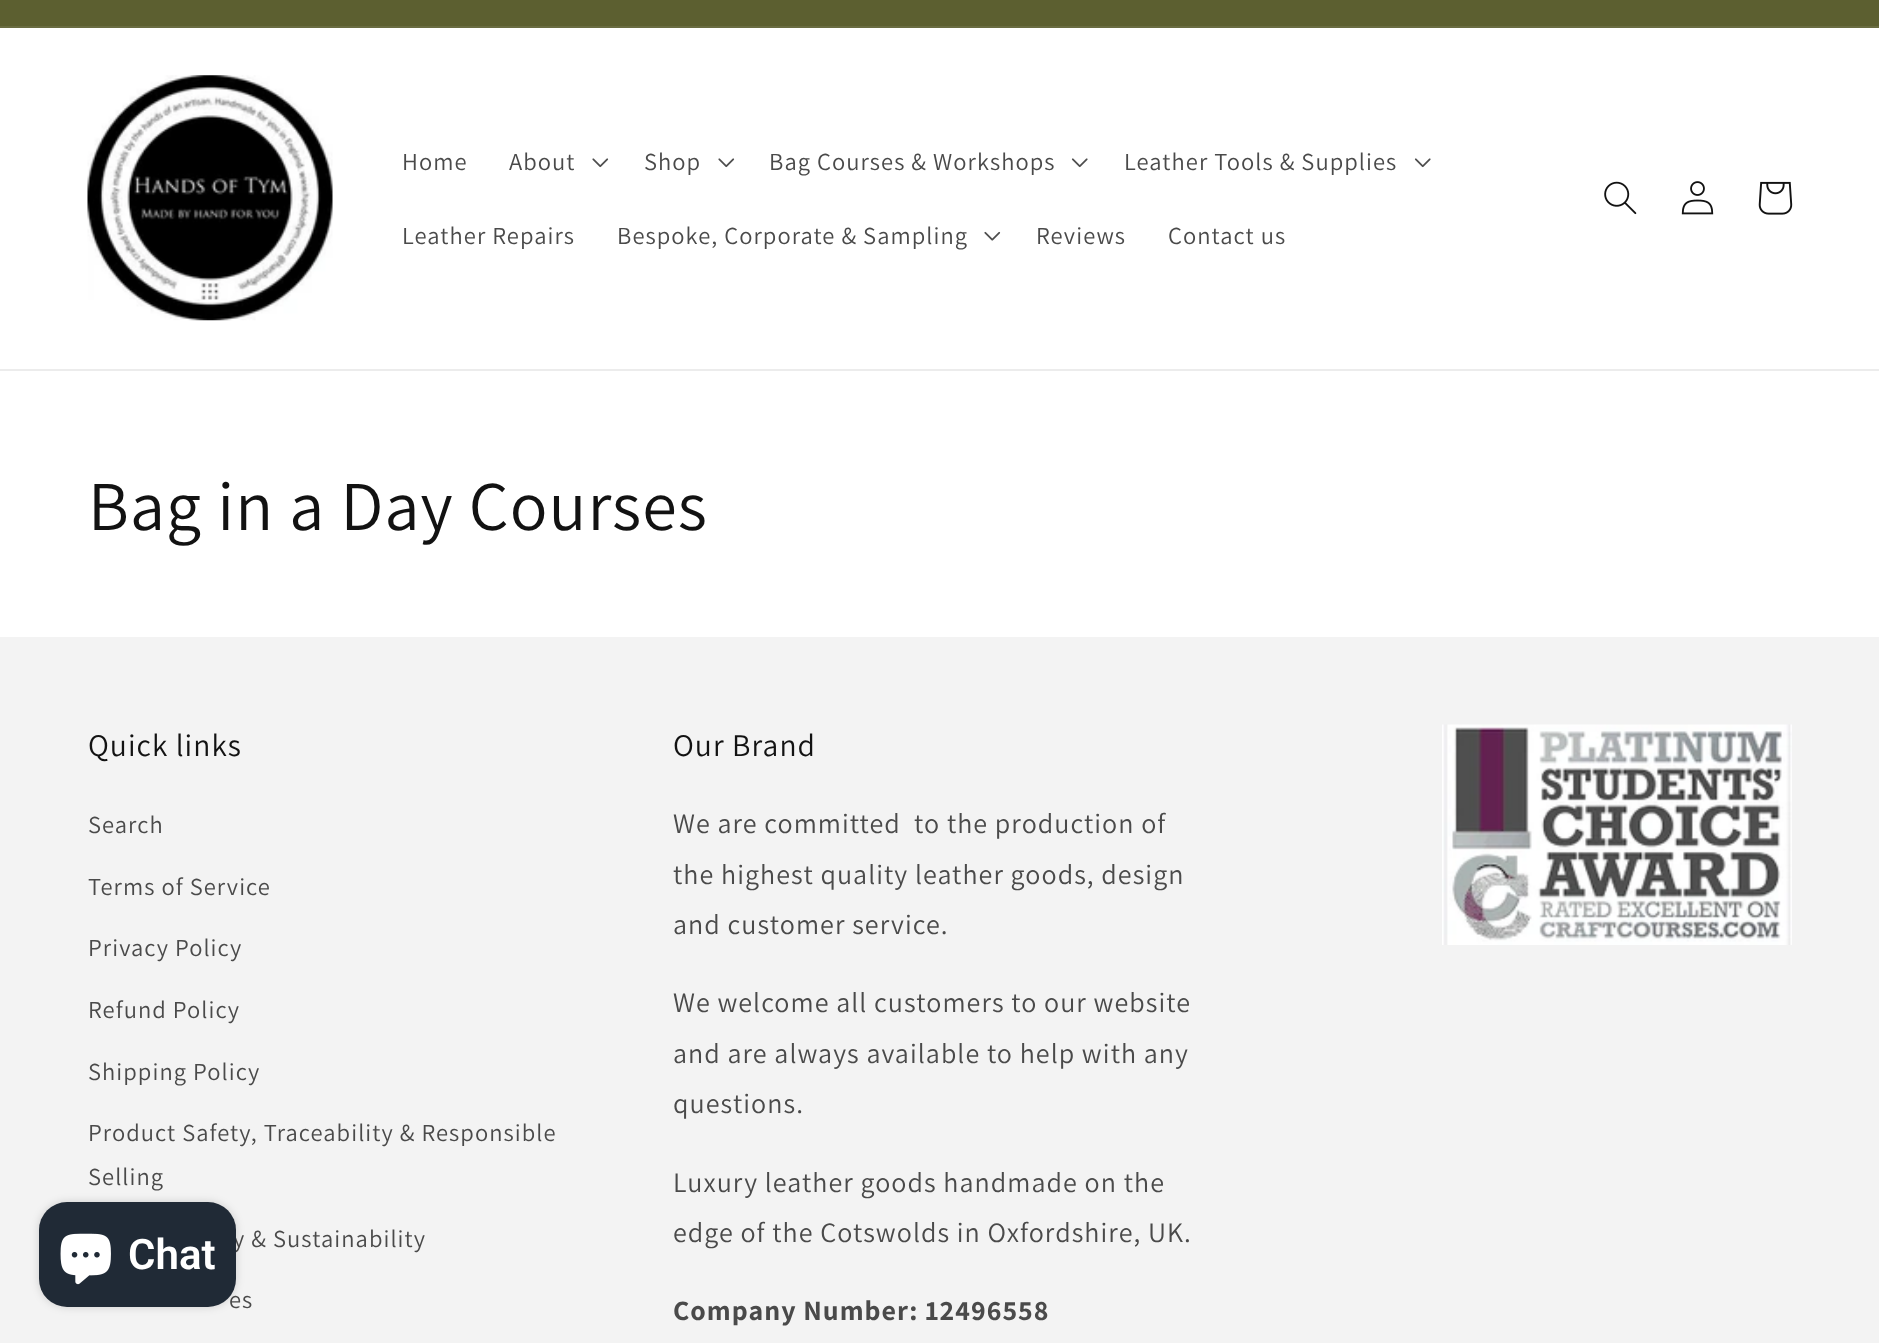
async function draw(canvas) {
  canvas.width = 1879
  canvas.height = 1343
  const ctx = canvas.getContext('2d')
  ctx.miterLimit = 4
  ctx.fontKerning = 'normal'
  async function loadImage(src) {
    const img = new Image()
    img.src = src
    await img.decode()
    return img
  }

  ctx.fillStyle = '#fff'
  ctx.fillRect(0, 0, 1879, 1343)
  ctx.fillStyle = '#5c5f30'
  ctx.fillRect(0, 0, 1879, 26)
  ctx.fillStyle = '#696c41'
  ctx.fillRect(0, 26, 1879, 2)
  ctx.fillStyle = '#ececec'
  ctx.fillRect(0, 369, 1879, 2)
  ctx.drawImage(await loadImage('image0.png'), 87, 75, 246, 246)
  ctx.letterSpacing = '1.05px'
  ctx.font = '24.5px Assistant'
  ctx.fillStyle = '#4a4a4a'
  ctx.fillText('Home', 402, 170)
  ctx.fillText('About', 509, 170)
  ctx.drawImage(await loadImage('image1.png'), 592, 158, 17, 10)
  ctx.fillText('Shop', 644, 170)
  ctx.drawImage(await loadImage('image1.png'), 718, 158, 17, 10)
  ctx.fillText('Bag Courses & Workshops', 769, 170)
  ctx.drawImage(await loadImage('image2.png'), 1071, 158, 17, 10)
  ctx.fillText('Leather Tools & Supplies', 1124, 170)
  ctx.drawImage(await loadImage('image2.png'), 1414, 158, 17, 10)
  ctx.fillText('Leather Repairs', 402, 244)
  ctx.fillText('Bespoke, Corporate & Sampling', 617, 244)
  ctx.drawImage(await loadImage('image3.png'), 984, 231, 17, 10)
  ctx.fillText('Reviews', 1036, 244)
  ctx.fillText('Contact us', 1168, 244)
  ctx.drawImage(await loadImage('image4.png'), 1604, 181, 33, 34)
  ctx.drawImage(await loadImage('image5.png'), 1681, 181, 33, 34)
  ctx.drawImage(await loadImage('image6.png'), 1758, 181, 35, 34)
  ctx.font = '70px Assistant'
  ctx.fillStyle = '#121212'
  ctx.fillText('Bag in a Day Courses', 88, 530)
  ctx.fillStyle = '#f3f3f3'
  ctx.fillRect(0, 637, 1879, 706)
  ctx.font = '31.5px Assistant'
  ctx.fillStyle = '#121212'
  ctx.fillText('Quick links', 88, 756)
  ctx.font = '24.5px Assistant'
  ctx.fillStyle = '#4a4a4a'
  ctx.fillText('Search', 88, 833)
  ctx.fillText('Terms of Service', 88, 895)
  ctx.fillText('Privacy Policy', 88, 956)
  ctx.fillText('Refund Policy', 88, 1018)
  ctx.fillText('Shipping Policy', 88, 1080)
  ctx.fillText('Product Safety, Traceability & Responsible', 88, 1141)
  ctx.fillText('Selling', 88, 1185)
  ctx.fillText('y & Sustainability', 233, 1247)
  ctx.fillText('es', 229, 1308)
  ctx.font = '31.5px Assistant'
  ctx.fillStyle = '#121212'
  ctx.fillText('Our Brand', 673, 756)
  ctx.font = '28px Assistant'
  ctx.fillStyle = '#4a4a4a'
  ctx.fillText('We are committed  to the production of', 673, 833)
  ctx.fillText('the highest quality leather goods, design', 673, 884)
  ctx.fillText('and customer service.', 673, 934)
  ctx.fillText('We welcome all customers to our website', 673, 1012)
  ctx.fillText('and are always available to help with any', 673, 1063)
  ctx.fillText('questions.', 673, 1113)
  ctx.fillText('Luxury leather goods handmade on the', 673, 1192)
  ctx.fillText('edge of the Cotswolds in Oxfordshire, UK.', 673, 1242)
  ctx.font = 'bold 28px Assistant'
  ctx.fillText('Company Number: 12496558', 673, 1320)
  ctx.drawImage(await loadImage('image7.png'), 1442, 724, 350, 221)
  ctx.fillStyle = '#00000026'
  ctx.filter = 'blur(4.5px)'
  ctx.beginPath()
  ctx.roundRect(39, 1202, 197, 105, 28)
  ctx.fill()
  ctx.filter = 'none'
  ctx.fillStyle = '#202a36'
  ctx.beginPath()
  ctx.roundRect(39, 1202, 197, 105, 28)
  ctx.fill()
  ctx.drawImage(await loadImage('image8.png'), 60, 1233, 51, 52)
  ctx.letterSpacing = '0px'
  ctx.font = '600 42px Roboto'
  ctx.fillStyle = '#fff'
  ctx.fillText('Chat', 128, 1269)
}

draw(document.querySelector('canvas'))
